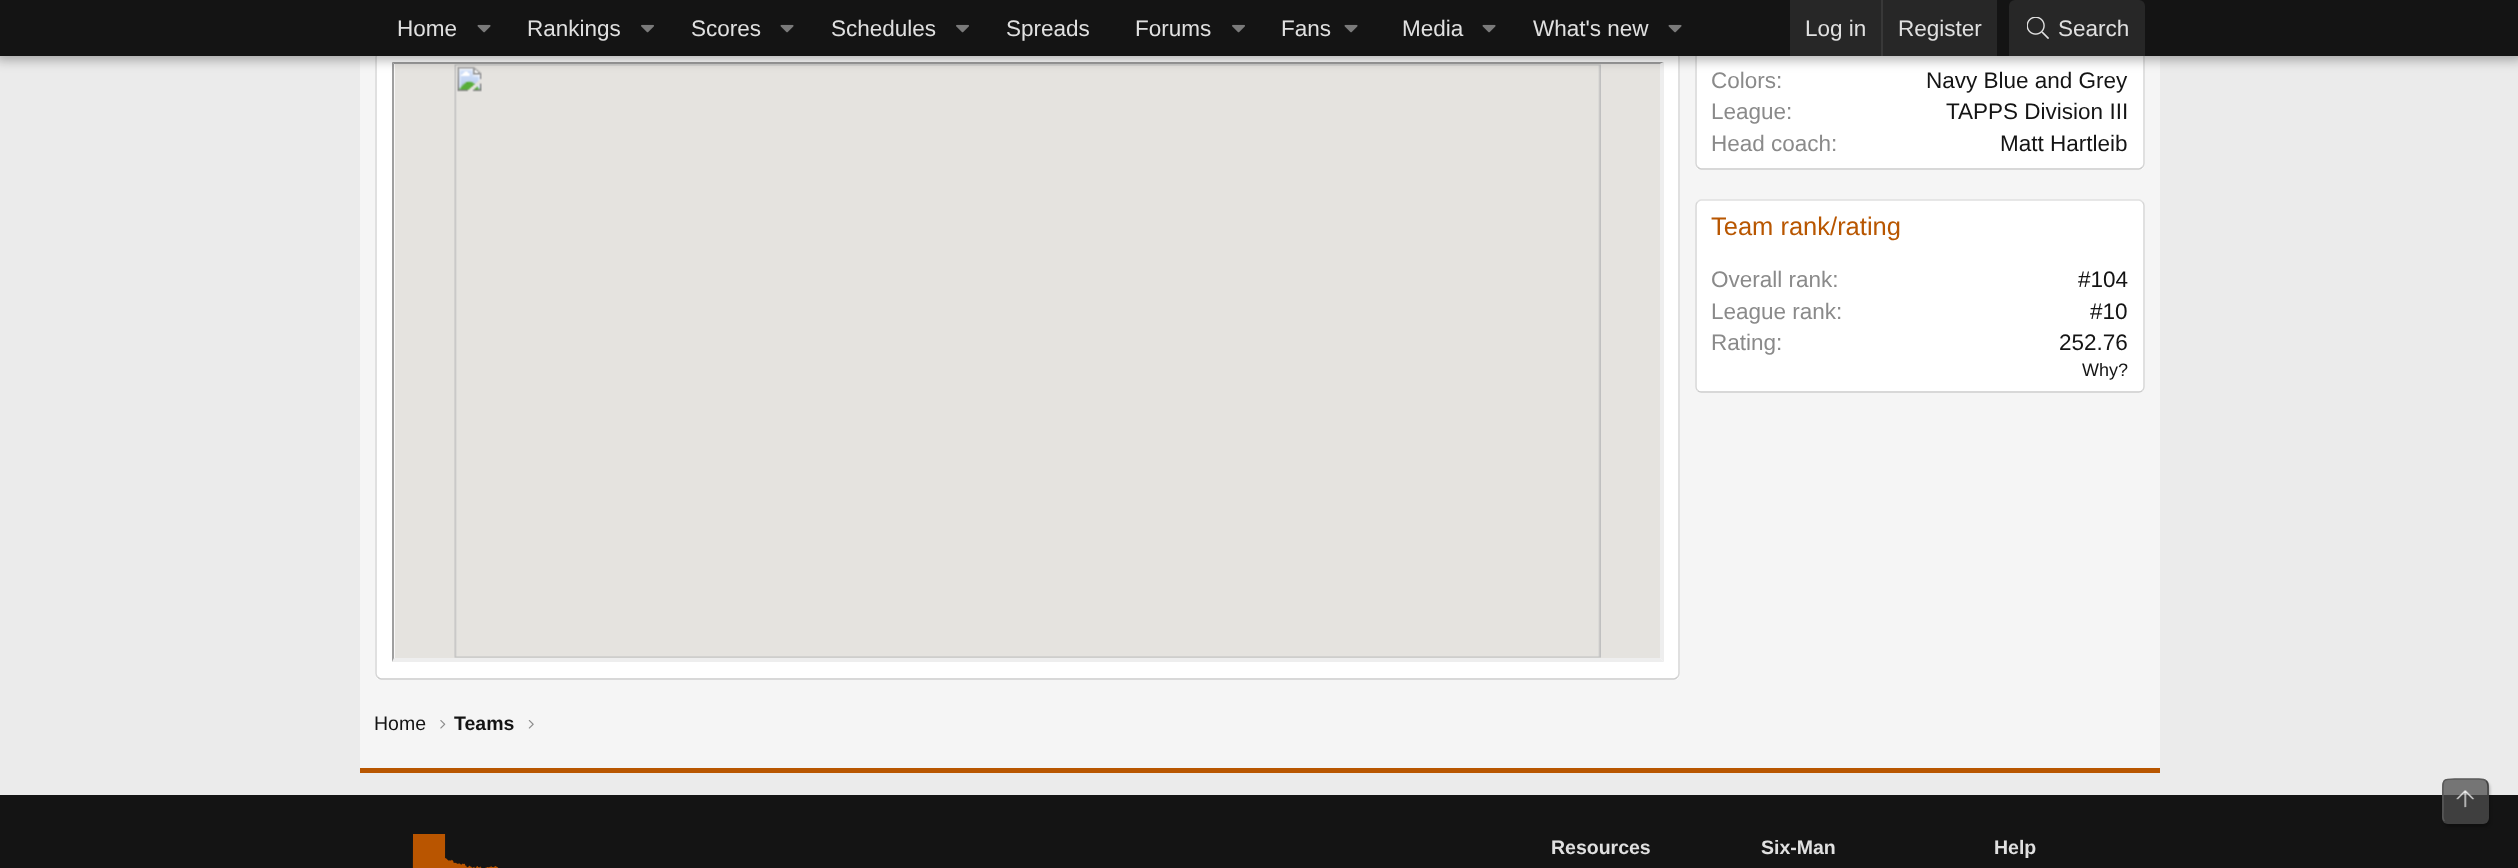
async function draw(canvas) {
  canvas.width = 2518
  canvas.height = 868
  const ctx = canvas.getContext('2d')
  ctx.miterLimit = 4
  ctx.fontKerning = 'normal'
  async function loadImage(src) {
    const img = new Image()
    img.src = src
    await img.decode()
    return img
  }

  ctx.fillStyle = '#ebebeb'
  ctx.fillRect(0, 0, 2518, 868)
  ctx.fillStyle = '#f5f5f5'
  ctx.fillRect(360, 56, 1800, 712)
  ctx.fillStyle = '#fff'
  ctx.beginPath()
  ctx.roundRect(375, 51, 1305, 629, 6)
  ctx.fill()
  ctx.beginPath()
  ctx.moveTo(1677.5, 53.5)
  ctx.bezierCurveTo(1678.5, 54.5, 1679, 55.5, 1679, 57)
  ctx.lineTo(1679, 673.5)
  ctx.bezierCurveTo(1679, 675, 1678.5, 676, 1677.5, 677)
  ctx.strokeStyle = '#d6d6d6'
  ctx.lineWidth = 1.5
  ctx.stroke()
  ctx.beginPath()
  ctx.moveTo(1677.5, 677)
  ctx.bezierCurveTo(1676.5, 678, 1675.5, 679, 1674, 679)
  ctx.lineTo(381, 679)
  ctx.bezierCurveTo(379.5, 679, 378.5, 678, 377.5, 677)
  ctx.strokeStyle = '#ccc'
  ctx.stroke()
  ctx.beginPath()
  ctx.moveTo(377.5, 677)
  ctx.bezierCurveTo(376.5, 676, 376, 675, 376, 673.5)
  ctx.lineTo(376, 57)
  ctx.bezierCurveTo(376, 55.5, 376.5, 54.5, 377.5, 53.5)
  ctx.strokeStyle = '#d6d6d6'
  ctx.stroke()
  ctx.fillStyle = '#9f9f9f'
  ctx.beginPath()
  ctx.moveTo(392, 62)
  ctx.lineTo(1664, 62)
  ctx.lineTo(1660, 64)
  ctx.lineTo(394, 64)
  ctx.closePath()
  ctx.fill()
  ctx.fillStyle = '#eee'
  ctx.beginPath()
  ctx.moveTo(1664, 62)
  ctx.lineTo(1664, 662)
  ctx.lineTo(1660, 658)
  ctx.lineTo(1660, 64)
  ctx.closePath()
  ctx.fill()
  ctx.beginPath()
  ctx.moveTo(1664, 662)
  ctx.lineTo(392, 662)
  ctx.lineTo(394, 658)
  ctx.lineTo(1660, 658)
  ctx.closePath()
  ctx.fill()
  ctx.fillStyle = '#9f9f9f'
  ctx.beginPath()
  ctx.moveTo(392, 662)
  ctx.lineTo(392, 62)
  ctx.lineTo(394, 64)
  ctx.lineTo(394, 658)
  ctx.closePath()
  ctx.fill()
  ctx.drawImage(await loadImage('image3.png'), 394, 64, 1266, 594)
  ctx.fillStyle = '#fff'
  ctx.beginPath()
  ctx.roundRect(1695, -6, 450, 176, 6)
  ctx.fill()
  ctx.beginPath()
  ctx.moveTo(2142.5, -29)
  ctx.bezierCurveTo(2143.5, -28, 2144, -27, 2144, -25.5)
  ctx.lineTo(2144, 163.5)
  ctx.bezierCurveTo(2144, 165, 2143.5, 166, 2142.5, 167)
  ctx.stroke()
  ctx.beginPath()
  ctx.moveTo(2142.5, 167)
  ctx.bezierCurveTo(2141.5, 168, 2140.5, 169, 2139, 169)
  ctx.lineTo(1701, 169)
  ctx.bezierCurveTo(1699.5, 169, 1698.5, 168, 1697.5, 167)
  ctx.strokeStyle = '#ccc'
  ctx.stroke()
  ctx.beginPath()
  ctx.moveTo(1697.5, 167)
  ctx.bezierCurveTo(1696.5, 166, 1696, 165, 1696, 163.5)
  ctx.lineTo(1696, -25.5)
  ctx.bezierCurveTo(1696, -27, 1696.5, -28, 1697.5, -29)
  ctx.strokeStyle = '#d6d6d6'
  ctx.stroke()
  ctx.fillStyle = '#0000004d'
  ctx.filter = 'blur(6px)'
  ctx.beginPath()
  ctx.rect(-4, -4, 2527, 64)
  ctx.fill()
  ctx.filter = 'none'
  ctx.fillStyle = '#141414'
  ctx.fillRect(0, 0, 2518, 56)
  ctx.font = '22.5px Liberation Sans'
  ctx.fillStyle = '#e0e0e0'
  ctx.fillText('Home', 397, 36)
  ctx.drawImage(await loadImage('image0.png'), 477, 24, 14, 9)
  ctx.fillText('Rankings', 527, 36)
  ctx.drawImage(await loadImage('image1.png'), 641, 24, 13, 9)
  ctx.fillText('Scores', 691, 36)
  ctx.drawImage(await loadImage('image0.png'), 780, 24, 14, 9)
  ctx.fillText('Schedules', 831, 36)
  ctx.drawImage(await loadImage('image1.png'), 956, 24, 13, 9)
  ctx.fillText('Spreads', 1006, 36)
  ctx.fillText('Forums', 1135, 36)
  ctx.drawImage(await loadImage('image1.png'), 1232, 24, 13, 9)
  ctx.fillText('Fans', 1281, 36)
  ctx.drawImage(await loadImage('image0.png'), 1344, 24, 14, 9)
  ctx.fillText('Media', 1402, 36)
  ctx.drawImage(await loadImage('image0.png'), 1482, 24, 14, 9)
  ctx.fillText('What\'s new', 1533, 36)
  ctx.drawImage(await loadImage('image0.png'), 1668, 24, 14, 9)
  ctx.fillStyle = '#272727'
  ctx.fillRect(1790, 0, 207, 56)
  ctx.fillStyle = '#e0e0e0'
  ctx.fillText('Log in', 1805, 36)
  ctx.fillStyle = '#383838'
  ctx.fillRect(1881, 0, 2, 56)
  ctx.fillStyle = '#e0e0e0'
  ctx.fillText('Register', 1898, 36)
  ctx.fillStyle = '#272727'
  ctx.beginPath()
  ctx.roundRect(2009, 0, 136, 56, [6, 6, 0, 0])
  ctx.fill()
  ctx.drawImage(await loadImage('image2.png'), 2027, 17, 22, 22)
  ctx.fillStyle = '#e0e0e0'
  ctx.fillText('Search', 2058, 36)
  ctx.fillStyle = '#b85600'
  ctx.fillRect(360, 768, 1800, 5)
  ctx.fillStyle = '#8a8a8a'
  ctx.fillText('Colors:', 1711, 88)
  ctx.fillStyle = '#141414'
  ctx.fillText('Navy Blue and Grey', 1926, 88)
  ctx.fillStyle = '#8a8a8a'
  ctx.fillText('League:', 1711, 119)
  ctx.fillStyle = '#141414'
  ctx.fillText('TAPPS Division III', 1946, 119)
  ctx.fillStyle = '#8a8a8a'
  ctx.fillText('Head coach:', 1711, 151)
  ctx.fillStyle = '#141414'
  ctx.fillText('Matt Hartleib', 2000, 151)
  ctx.fillStyle = '#fff'
  ctx.beginPath()
  ctx.roundRect(1695, 200, 450, 193, 6)
  ctx.fill()
  ctx.beginPath()
  ctx.moveTo(1697.5, 202)
  ctx.bezierCurveTo(1698.5, 201, 1699.5, 200, 1701, 200)
  ctx.lineTo(2139, 200)
  ctx.bezierCurveTo(2140.5, 200, 2141.5, 201, 2142.5, 202)
  ctx.strokeStyle = '#e0e0e0'
  ctx.stroke()
  ctx.beginPath()
  ctx.moveTo(2142.5, 202)
  ctx.bezierCurveTo(2143.5, 203, 2144, 204, 2144, 205.5)
  ctx.lineTo(2144, 387)
  ctx.bezierCurveTo(2144, 388.5, 2143.5, 389.5, 2142.5, 390.5)
  ctx.strokeStyle = '#d6d6d6'
  ctx.stroke()
  ctx.beginPath()
  ctx.moveTo(2142.5, 390.5)
  ctx.bezierCurveTo(2141.5, 391.5, 2140.5, 392, 2139, 392)
  ctx.lineTo(1701, 392)
  ctx.bezierCurveTo(1699.5, 392, 1698.5, 391.5, 1697.5, 390.5)
  ctx.strokeStyle = '#ccc'
  ctx.stroke()
  ctx.beginPath()
  ctx.moveTo(1697.5, 390.5)
  ctx.bezierCurveTo(1696.5, 389.5, 1696, 388.5, 1696, 387)
  ctx.lineTo(1696, 205.5)
  ctx.bezierCurveTo(1696, 204, 1696.5, 203, 1697.5, 202)
  ctx.strokeStyle = '#d6d6d6'
  ctx.stroke()
  ctx.font = '25.5px Liberation Sans'
  ctx.fillStyle = '#b85600'
  ctx.fillText('Team rank/rating', 1711, 235)
  ctx.font = '22.5px Liberation Sans'
  ctx.fillStyle = '#8a8a8a'
  ctx.fillText('Overall rank:', 1711, 287)
  ctx.fillStyle = '#141414'
  ctx.fillText('#104', 2078, 287)
  ctx.fillStyle = '#8a8a8a'
  ctx.fillText('League rank:', 1711, 319)
  ctx.fillStyle = '#141414'
  ctx.fillText('#10', 2090, 319)
  ctx.fillStyle = '#8a8a8a'
  ctx.fillText('Rating:', 1711, 350)
  ctx.fillStyle = '#141414'
  ctx.fillText('252.76', 2059, 350)
  ctx.font = '18px Liberation Sans'
  ctx.fillText('Why?', 2082, 376)
  ctx.font = '19.5px Liberation Sans'
  ctx.fillText('Home', 374, 730)
  ctx.drawImage(await loadImage('image4.png'), 440, 720, 6, 9)
  ctx.font = 'bold 19.5px Liberation Sans'
  ctx.fillText('Teams', 454, 730)
  ctx.drawImage(await loadImage('image5.png'), 528, 720, 6, 9)
  ctx.fillRect(0, 795, 2518, 73)
  ctx.drawImage(await loadImage('image6.png'), 412, 834, 87, 34)
  ctx.fillStyle = '#e0e0e0'
  ctx.fillText('Resources', 1551, 854)
  ctx.fillText('Six-Man', 1761, 854)
  ctx.fillText('Help', 1994, 854)
  ctx.save()
  ctx.beginPath()
  ctx.moveTo(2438, 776)
  ctx.lineTo(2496, 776)
  ctx.lineTo(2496, 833)
  ctx.lineTo(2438, 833)
  ctx.closePath()
  ctx.moveTo(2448, 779)
  ctx.lineTo(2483, 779)
  ctx.bezierCurveTo(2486.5, 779, 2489, 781.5, 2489, 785)
  ctx.lineTo(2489, 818)
  ctx.bezierCurveTo(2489, 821.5, 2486.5, 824, 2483, 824)
  ctx.lineTo(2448, 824)
  ctx.bezierCurveTo(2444.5, 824, 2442, 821.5, 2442, 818)
  ctx.lineTo(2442, 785)
  ctx.bezierCurveTo(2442, 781.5, 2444.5, 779, 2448, 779)
  ctx.closePath()
  ctx.clip('evenodd')
  ctx.fillStyle = '#00000040'
  ctx.filter = 'blur(1.5px)'
  ctx.beginPath()
  ctx.roundRect(2444, 782, 46, 45, 6)
  ctx.fill()
  ctx.filter = 'none'
  ctx.restore()
  ctx.fillStyle = '#4d4d4dbf'
  ctx.beginPath()
  ctx.roundRect(2442, 779, 47, 45, 6)
  ctx.fill()
  ctx.beginPath()
  ctx.moveTo(2486, 781)
  ctx.bezierCurveTo(2488.5, 783, 2488, 787, 2488, 790)
  ctx.lineTo(2488, 801)
  ctx.bezierCurveTo(2488, 826.5, 2491, 823, 2465, 823)
  ctx.lineTo(2454, 823)
  ctx.bezierCurveTo(2451, 823, 2446.5, 823.5, 2444.5, 821)
  ctx.strokeStyle = '#404040'
  ctx.stroke()
  ctx.beginPath()
  ctx.moveTo(2444.5, 821)
  ctx.bezierCurveTo(2442, 819, 2443, 815, 2443, 812)
  ctx.lineTo(2443, 801)
  ctx.bezierCurveTo(2443, 775.5, 2439.5, 779, 2465, 779)
  ctx.lineTo(2477, 779)
  ctx.bezierCurveTo(2479.5, 779, 2484, 778.5, 2486, 781)
  ctx.strokeStyle = '#595959'
  ctx.stroke()
  ctx.drawImage(await loadImage('image7.png'), 2456, 790, 19, 18)
}

draw(document.querySelector('canvas'))
